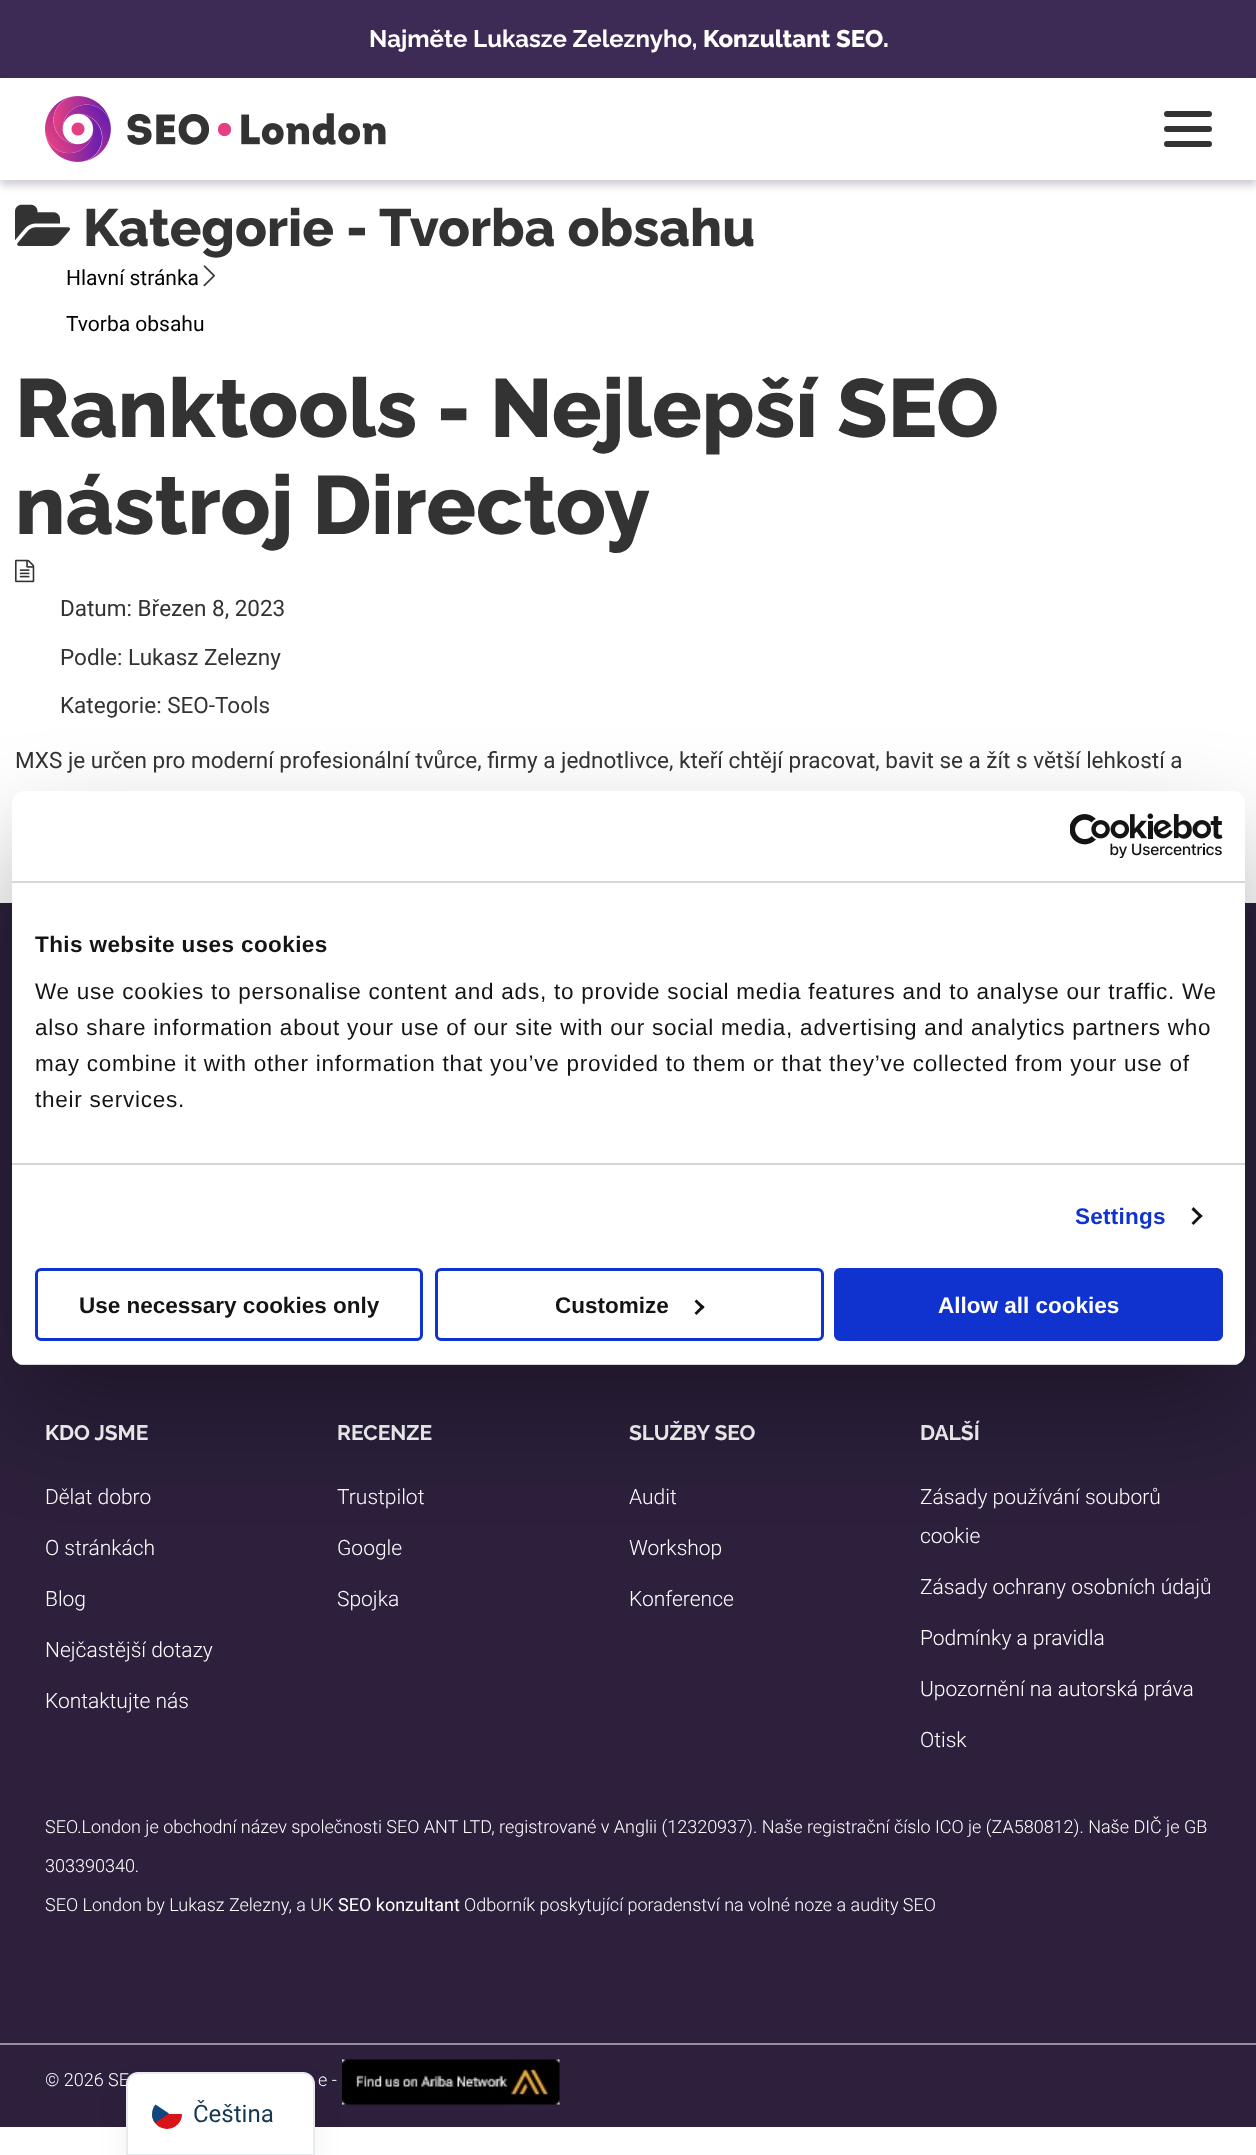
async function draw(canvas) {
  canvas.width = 1256
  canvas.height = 2155
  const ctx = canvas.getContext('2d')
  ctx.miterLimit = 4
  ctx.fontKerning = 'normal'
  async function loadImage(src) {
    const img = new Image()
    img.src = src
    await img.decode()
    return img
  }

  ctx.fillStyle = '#fff'
  ctx.fillRect(0, 0, 1256, 2155)
  ctx.fillStyle = '#3d2b56'
  ctx.fillRect(0, 0, 1256, 78)
  ctx.font = 'bold 24px Raleway'
  ctx.fillStyle = '#fff'
  ctx.fillText('Najměte Lukasze Zeleznyho,', 369, 47)
  ctx.font = '800 24px Raleway'
  ctx.fillText('Konzultant SEO.', 703, 47)
  ctx.save()
  ctx.beginPath()
  ctx.moveTo(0, 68)
  ctx.lineTo(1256, 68)
  ctx.lineTo(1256, 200)
  ctx.lineTo(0, 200)
  ctx.closePath()
  ctx.moveTo(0, 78)
  ctx.lineTo(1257, 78)
  ctx.lineTo(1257, 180)
  ctx.lineTo(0, 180)
  ctx.closePath()
  ctx.clip('evenodd')
  ctx.fillStyle = '#3d2b5642'
  ctx.filter = 'blur(4.5px)'
  ctx.beginPath()
  ctx.rect(0, 83, 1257, 102)
  ctx.fill()
  ctx.filter = 'none'
  ctx.restore()
  ctx.drawImage(await loadImage('image0.png'), 45, 96, 341, 66)
  ctx.fillStyle = '#333'
  ctx.beginPath()
  ctx.roundRect(1164, 111, 48, 6, 3)
  ctx.fill()
  ctx.beginPath()
  ctx.roundRect(1164, 126, 48, 6, 3)
  ctx.fill()
  ctx.beginPath()
  ctx.roundRect(1164, 141, 48, 6, 3)
  ctx.fill()
  ctx.drawImage(await loadImage('image1.png'), 15, 204, 55, 42)
  ctx.font = '800 52.5px Raleway'
  ctx.fillText('Kategorie -', 83, 246)
  ctx.fillText('Tvorba obsahu', 379, 246)
  ctx.font = '21px Roboto'
  ctx.fillStyle = '#000'
  ctx.fillText('Hlavní stránka', 66, 285)
  ctx.drawImage(await loadImage('image2.png'), 203, 265, 12, 22)
  ctx.fillText('Tvorba obsahu', 66, 331)
  ctx.font = '800 82.5px Raleway'
  ctx.fillStyle = '#333'
  ctx.fillText('Ranktools - Nejlepší SEO', 15, 437)
  ctx.fillText('nástroj Directoy', 15, 534)
  ctx.drawImage(await loadImage('image3.png'), 15, 559, 20, 24)
  ctx.font = '22.5px Roboto'
  ctx.fillText('Datum: Březen 8, 2023', 60, 616)
  ctx.fillText('Podle: Lukasz Zelezny', 60, 665)
  ctx.fillText('Kategorie: SEO-Tools', 60, 713)
  ctx.fillText('MXS je určen pro moderní profesionální tvůrce, firmy a jednotlivce, kteří chtějí pracovat, bavit se a žít s větší lehkostí a', 15, 768)
  ctx.fillStyle = '#2c203c'
  ctx.fillRect(0, 903, 1256, 1224)
  ctx.font = 'bold 21px Raleway'
  ctx.fillStyle = '#fff'
  ctx.fillText('KDO JSME', 45, 1440)
  ctx.font = '300 21px Roboto'
  ctx.fillText('Dělat dobro', 45, 1504)
  ctx.fillText('O stránkách', 45, 1555)
  ctx.fillText('Blog', 45, 1606)
  ctx.fillText('Nejčastější dotazy', 45, 1657)
  ctx.fillText('Kontaktujte nás', 45, 1708)
  ctx.font = 'bold 21px Raleway'
  ctx.fillText('RECENZE', 337, 1440)
  ctx.font = '300 21px Roboto'
  ctx.fillText('Trustpilot', 337, 1504)
  ctx.fillText('Google', 337, 1555)
  ctx.fillText('Spojka', 337, 1606)
  ctx.font = 'bold 21px Raleway'
  ctx.fillText('SLUŽBY SEO', 629, 1440)
  ctx.font = '300 21px Roboto'
  ctx.fillText('Audit', 629, 1504)
  ctx.fillText('Workshop', 629, 1555)
  ctx.fillText('Konference', 629, 1606)
  ctx.font = 'bold 21px Raleway'
  ctx.fillText('DALŠÍ', 920, 1440)
  ctx.font = '300 21px Roboto'
  ctx.fillText('Zásady používání souborů', 920, 1504)
  ctx.fillText('cookie', 920, 1543)
  ctx.fillText('Zásady ochrany osobních údajů', 920, 1594)
  ctx.fillText('Podmínky a pravidla', 920, 1645)
  ctx.fillText('Upozornění na autorská práva', 920, 1696)
  ctx.fillText('Otisk', 920, 1747)
  ctx.font = '300 18px Roboto'
  ctx.fillText('SEO.London je obchodní název společnosti SEO ANT LTD, registrované v Anglii (12320937). Naše registrační číslo ICO je (ZA580812). Naše DIČ je GB', 45, 1833)
  ctx.fillText('303390340.', 45, 1872)
  ctx.fillText('SEO London by Lukasz Zelezny, a UK', 45, 1911)
  ctx.font = '18px Roboto'
  ctx.fillText('SEO konzultant', 338, 1911)
  ctx.font = '300 18px Roboto'
  ctx.fillText('Odborník poskytující poradenství na volné noze a audity SEO', 464, 1911)
  ctx.fillStyle = '#96909e'
  ctx.fillRect(0, 2043, 1256, 2)
  ctx.fillStyle = '#fff'
  ctx.fillText('© 2026 SE', 45, 2086)
  ctx.fillText('e -', 318, 2086)
  ctx.drawImage(await loadImage('image4.png'), 342, 2059, 218, 46)
  ctx.fillStyle = '#0000004d'
  ctx.filter = 'blur(51px)'
  ctx.beginPath()
  ctx.roundRect(12, 839, 1233, 574, 12)
  ctx.fill()
  ctx.filter = 'none'
  ctx.fillStyle = '#fff'
  ctx.beginPath()
  ctx.roundRect(12, 791, 1233, 574, 12)
  ctx.fill()
  ctx.fillStyle = '#d6d6d6'
  ctx.fillRect(12, 881, 1233, 2)
  ctx.drawImage(await loadImage('image5.png'), 1070, 813, 153, 45)
  ctx.fillRect(12, 1163, 1233, 2)
  ctx.letterSpacing = '0.4px'
  ctx.font = 'bold 22.5px Liberation Sans'
  ctx.fillStyle = '#141414'
  ctx.fillText('This website uses cookies', 35, 952)
  ctx.letterSpacing = '0.75px'
  ctx.font = '22.5px Liberation Sans'
  ctx.fillText('We use cookies to personalise content and ads, to provide social media features and to analyse our traffic. We', 35, 999)
  ctx.fillText('also share information about your use of our site with our social media, advertising and analytics partners who', 35, 1035)
  ctx.fillText('may combine it with other information that you’ve provided to them or that they’ve collected from your use of', 35, 1071)
  ctx.fillText('their services.', 35, 1107)
  ctx.letterSpacing = '0.25px'
  ctx.font = 'bold 22.5px Liberation Sans'
  ctx.fillStyle = '#1032cf'
  ctx.fillText('Settings', 1075, 1224)
  ctx.fillStyle = '#141414'
  ctx.beginPath()
  ctx.moveTo(1193.5, 1207)
  ctx.lineTo(1202.5, 1216)
  ctx.lineTo(1200.5, 1218)
  ctx.lineTo(1191.5, 1209.5)
  ctx.closePath()
  ctx.fill()
  ctx.beginPath()
  ctx.moveTo(1200.5, 1214)
  ctx.lineTo(1202.5, 1216)
  ctx.lineTo(1193.5, 1225)
  ctx.lineTo(1191.5, 1223)
  ctx.closePath()
  ctx.fill()
  ctx.save()
  ctx.beginPath()
  ctx.roundRect(12, 791, 1233, 574, 12)
  ctx.clip()
  ctx.fillStyle = '#d6d6d6'
  ctx.fillRect(12, 1364, 1233, 1)
  ctx.restore()
  ctx.beginPath()
  ctx.roundRect(36.5, 1269.5, 385, 70, 4.5)
  ctx.strokeStyle = '#1032cf'
  ctx.lineWidth = 3
  ctx.stroke()
  ctx.letterSpacing = '0px'
  ctx.fillText('Use necessary cookies only', 79, 1313)
  ctx.beginPath()
  ctx.roundRect(436.5, 1269.5, 386, 70, 4.5)
  ctx.stroke()
  ctx.fillText('Customize', 555, 1313)
  ctx.beginPath()
  ctx.moveTo(696.5, 1299.5)
  ctx.lineTo(704.5, 1307)
  ctx.lineTo(702.5, 1309.5)
  ctx.lineTo(694.5, 1301.5)
  ctx.closePath()
  ctx.fill()
  ctx.beginPath()
  ctx.moveTo(702.5, 1305)
  ctx.lineTo(704.5, 1307)
  ctx.lineTo(696.5, 1315)
  ctx.lineTo(694.5, 1313)
  ctx.closePath()
  ctx.fill()
  ctx.fillStyle = '#1032cf'
  ctx.beginPath()
  ctx.roundRect(835.5, 1269.5, 386, 70, 4.5)
  ctx.fill()
  ctx.stroke()
  ctx.fillStyle = '#fff'
  ctx.fillText('Allow all cookies', 938, 1313)
  ctx.fillStyle = '#0000000d'
  ctx.filter = 'blur(15px)'
  ctx.beginPath()
  ctx.roundRect(126, 2087, 189, 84, 12)
  ctx.fill()
  ctx.filter = 'none'
  ctx.fillStyle = '#fff'
  ctx.beginPath()
  ctx.moveTo(138, 2072)
  ctx.lineTo(303, 2072)
  ctx.bezierCurveTo(309.5, 2072, 315, 2077.5, 315, 2084)
  ctx.lineTo(315, 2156)
  ctx.lineTo(126, 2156)
  ctx.lineTo(126, 2084)
  ctx.bezierCurveTo(126, 2077.5, 131.5, 2072, 138, 2072)
  ctx.closePath()
  ctx.fill()
  ctx.beginPath()
  ctx.moveTo(138, 2073)
  ctx.lineTo(303, 2073)
  ctx.bezierCurveTo(309, 2073, 314, 2078, 314, 2084)
  ctx.lineTo(314, 2155)
  ctx.lineTo(127, 2155)
  ctx.lineTo(127, 2084)
  ctx.bezierCurveTo(127, 2078, 132, 2073, 138, 2073)
  ctx.closePath()
  ctx.strokeStyle = '#1438521a'
  ctx.lineWidth = 2
  ctx.stroke()
  ctx.fillStyle = '#d7141a'
  ctx.beginPath()
  ctx.roundRect(152, 2114, 30, 15, [0, 0, 15, 15])
  ctx.fill()
  ctx.fillStyle = '#11457e'
  ctx.beginPath()
  ctx.moveTo(169, 2113.5)
  ctx.lineTo(155.5, 2104.5)
  ctx.bezierCurveTo(151, 2109.5, 151, 2117.5, 155, 2123)
  ctx.closePath()
  ctx.fill()
  ctx.font = '24px Roboto'
  ctx.fillStyle = '#143852'
  ctx.fillText('Čeština', 193, 2122)
}

draw(document.querySelector('canvas'))
